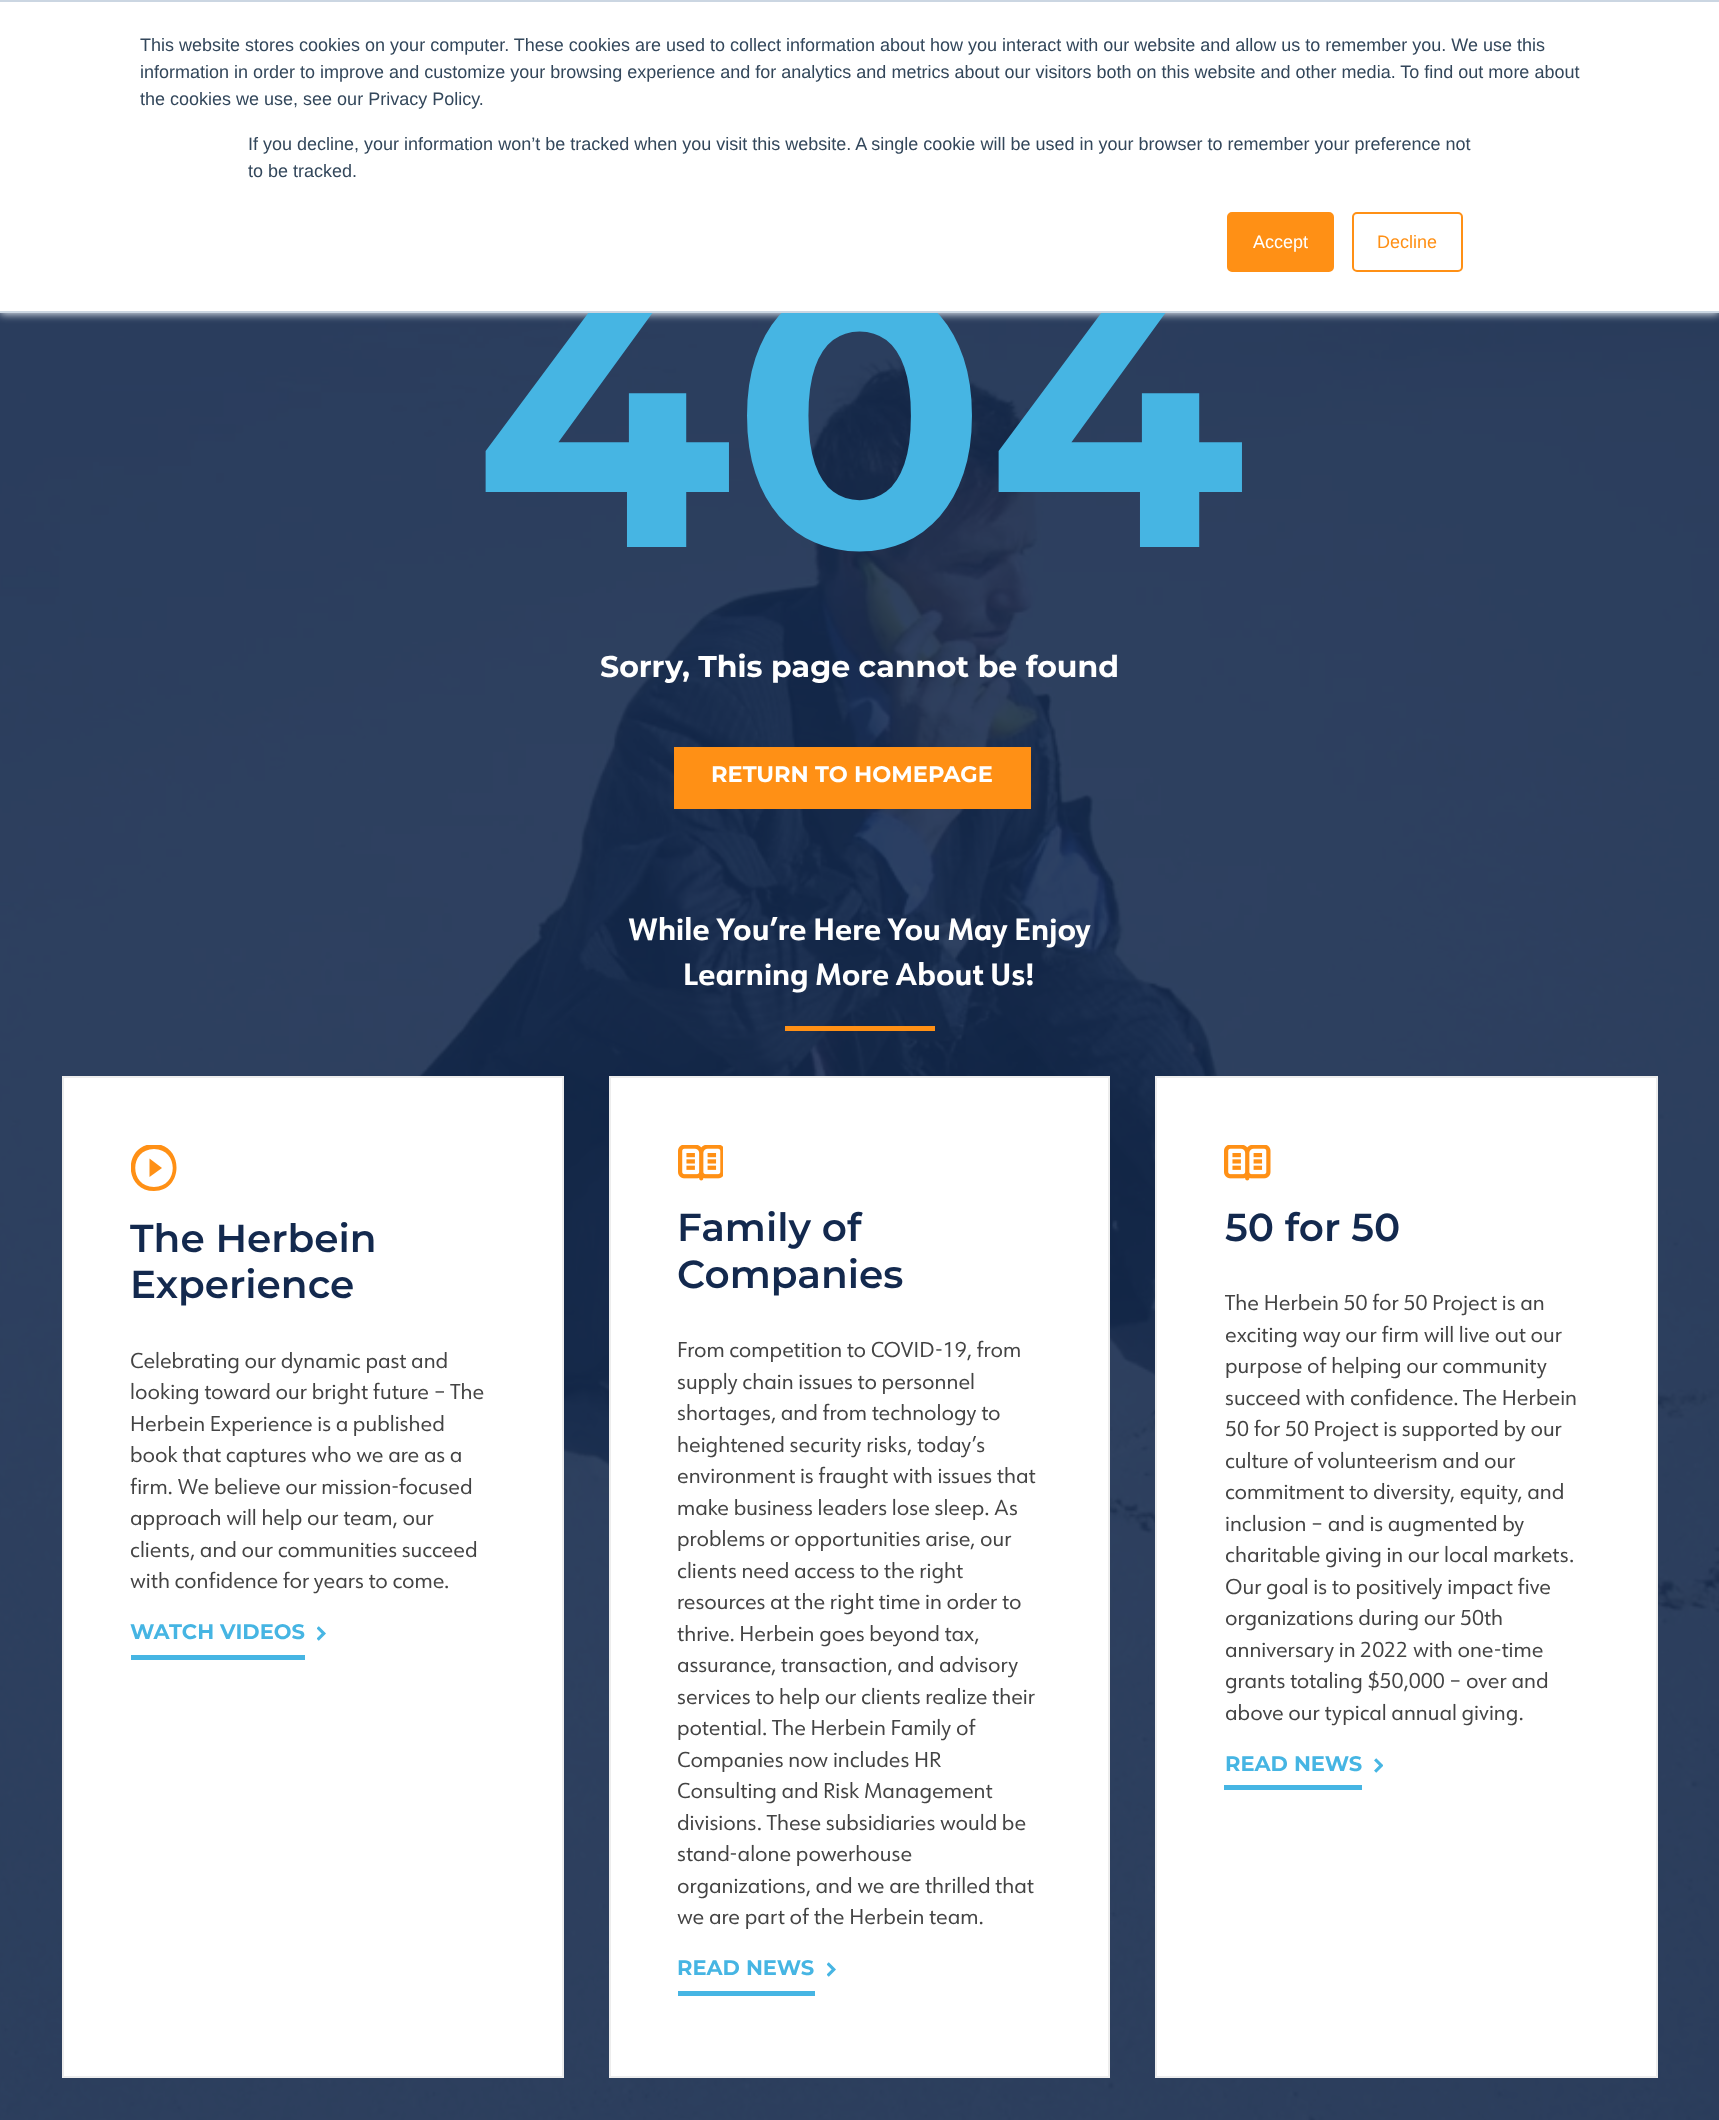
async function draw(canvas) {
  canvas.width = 1719
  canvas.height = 2120
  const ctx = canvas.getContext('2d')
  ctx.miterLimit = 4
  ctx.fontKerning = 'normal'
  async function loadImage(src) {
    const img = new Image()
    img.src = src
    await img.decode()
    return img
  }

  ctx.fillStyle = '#fff'
  ctx.fillRect(0, 0, 1719, 2120)
  ctx.drawImage(await loadImage('image0.png'), 0, 313, 1719, 1807)
  ctx.fillStyle = '#eaf0f6'
  ctx.filter = 'blur(4px)'
  ctx.beginPath()
  ctx.rect(0, 2, 1719, 312)
  ctx.fill()
  ctx.filter = 'none'
  ctx.font = 'bold 375px Montserrat'
  ctx.fillStyle = '#46b5e3'
  ctx.fillText('404', 474, 547)
  ctx.fillStyle = '#fff'
  ctx.fillRect(0, 2, 1719, 309)
  ctx.fillStyle = '#cbd6e2'
  ctx.fillRect(0, 0, 1719, 2)
  ctx.fillRect(0, 311, 1719, 2)
  ctx.font = '18px Liberation Sans'
  ctx.fillStyle = '#33475b'
  ctx.fillText('This website stores cookies on your computer. These cookies are used to collect information about how you interact with our website and allow us to remember you. We use this', 140, 51)
  ctx.fillText('information in order to improve and customize your browsing experience and for analytics and metrics about our visitors both on this website and other media. To find out more about', 140, 78)
  ctx.fillText('the cookies we use, see our Privacy Policy.', 140, 105)
  ctx.fillText('If you decline, your information won’t be tracked when you visit this website. A single cookie will be used in your browser to remember your preference not', 248, 150)
  ctx.fillText('to be tracked.', 248, 177)
  ctx.fillStyle = '#ff9015'
  ctx.beginPath()
  ctx.roundRect(1228, 213, 105, 58, 4)
  ctx.fill()
  ctx.strokeStyle = '#ff9015'
  ctx.lineWidth = 2
  ctx.stroke()
  ctx.fillStyle = '#fff'
  ctx.fillText('Accept', 1253, 248)
  ctx.beginPath()
  ctx.roundRect(1353, 213, 109, 58, 4)
  ctx.stroke()
  ctx.fillStyle = '#ff9015'
  ctx.fillText('Decline', 1377, 248)
  ctx.font = 'bold 30px Montserrat'
  ctx.fillStyle = '#fff'
  ctx.fillText('Sorry, This page cannot be found', 600, 677)
  ctx.fillStyle = '#ff9015'
  ctx.fillRect(674, 747, 357, 62)
  ctx.font = 'bold 22.5px Montserrat'
  ctx.fillStyle = '#fff'
  ctx.fillText('RETURN TO HOMEPAGE', 711, 782)
  ctx.font = 'bold 30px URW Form'
  ctx.fillText('While You’re Here You May Enjoy', 628, 940)
  ctx.fillText('Learning More About Us!', 683, 985)
  ctx.fillStyle = '#ff9015'
  ctx.fillRect(785, 1026, 150, 5)
  ctx.fillStyle = '#fff'
  ctx.beginPath()
  ctx.rect(63, 1077, 500, 1000)
  ctx.fill()
  ctx.strokeStyle = '#ededed'
  ctx.stroke()
  ctx.save()
  ctx.beginPath()
  ctx.rect(131, 1145, 46, 46)
  ctx.clip()
  ctx.fillStyle = '#ff9015'
  ctx.beginPath()
  ctx.moveTo(154, 1187)
  ctx.bezierCurveTo(179, 1187, 179, 1149, 154, 1149)
  ctx.bezierCurveTo(129, 1149, 129, 1187, 154, 1187)
  ctx.closePath()
  ctx.moveTo(154, 1191)
  ctx.bezierCurveTo(184, 1191, 184, 1144, 154, 1144)
  ctx.bezierCurveTo(123, 1144, 123, 1191, 154, 1191)
  ctx.closePath()
  ctx.fill('evenodd')
  ctx.restore()
  ctx.fillStyle = '#ff9015'
  ctx.beginPath()
  ctx.moveTo(162, 1168)
  ctx.lineTo(149.5, 1177)
  ctx.lineTo(149.5, 1158.5)
  ctx.closePath()
  ctx.fill()
  ctx.font = '600 39px Montserrat'
  ctx.fillStyle = '#13294e'
  ctx.fillText('The Herbein', 130, 1252)
  ctx.fillText('Experience', 130, 1298)
  ctx.font = '21px URW Form'
  ctx.fillStyle = '#444'
  ctx.fillText('Celebrating our dynamic past and', 130, 1368)
  ctx.fillText('looking toward our bright future – The', 130, 1399)
  ctx.fillText('Herbein Experience is a published', 130, 1431)
  ctx.fillText('book that captures who we are as a', 130, 1462)
  ctx.fillText('firm. We believe our mission-focused', 130, 1494)
  ctx.fillText('approach will help our team, our', 130, 1525)
  ctx.fillText('clients, and our communities succeed', 130, 1557)
  ctx.fillText('with confidence for years to come.', 130, 1588)
  ctx.font = 'bold 21px Montserrat'
  ctx.fillStyle = '#46b5e3'
  ctx.fillText('WATCH VIDEOS', 130, 1639)
  ctx.drawImage(await loadImage('image1.png'), 317, 1626, 9, 15)
  ctx.fillRect(131, 1655, 174, 5)
  ctx.fillStyle = '#fff'
  ctx.beginPath()
  ctx.rect(610, 1077, 499, 1000)
  ctx.fill()
  ctx.stroke()
  ctx.drawImage(await loadImage('image2.png'), 678, 1145, 45, 36)
  ctx.font = '600 39px Montserrat'
  ctx.fillStyle = '#13294e'
  ctx.fillText('Family of', 677, 1241)
  ctx.fillText('Companies', 677, 1288)
  ctx.font = '21px URW Form'
  ctx.fillStyle = '#444'
  ctx.fillText('From competition to COVID-19, from', 677, 1357)
  ctx.fillText('supply chain issues to personnel', 677, 1389)
  ctx.fillText('shortages, and from technology to', 677, 1420)
  ctx.fillText('heightened security risks, today’s', 677, 1452)
  ctx.fillText('environment is fraught with issues that', 677, 1483)
  ctx.fillText('make business leaders lose sleep. As', 677, 1515)
  ctx.fillText('problems or opportunities arise, our', 677, 1546)
  ctx.fillText('clients need access to the right', 677, 1578)
  ctx.fillText('resources at the right time in order to', 677, 1609)
  ctx.fillText('thrive. Herbein goes beyond tax,', 677, 1641)
  ctx.fillText('assurance, transaction, and advisory', 677, 1672)
  ctx.fillText('services to help our clients realize their', 677, 1704)
  ctx.fillText('potential. The Herbein Family of', 677, 1735)
  ctx.fillText('Companies now includes HR', 677, 1767)
  ctx.fillText('Consulting and Risk Management', 677, 1798)
  ctx.fillText('divisions. These subsidiaries would be', 677, 1830)
  ctx.fillText('stand-alone powerhouse', 677, 1861)
  ctx.fillText('organizations, and we are thrilled that', 677, 1893)
  ctx.fillText('we are part of the Herbein team.', 677, 1924)
  ctx.font = 'bold 21px Montserrat'
  ctx.fillStyle = '#46b5e3'
  ctx.fillText('READ NEWS', 677, 1975)
  ctx.drawImage(await loadImage('image1.png'), 827, 1962, 9, 15)
  ctx.fillRect(678, 1991, 137, 5)
  ctx.fillStyle = '#fff'
  ctx.beginPath()
  ctx.rect(1156, 1077, 501, 1000)
  ctx.fill()
  ctx.stroke()
  ctx.drawImage(await loadImage('image3.png'), 1224, 1145, 47, 36)
  ctx.font = '600 39px Montserrat'
  ctx.fillStyle = '#13294e'
  ctx.fillText('50 for 50', 1225, 1241)
  ctx.font = '21px URW Form'
  ctx.fillStyle = '#444'
  ctx.fillText('The Herbein 50 for 50 Project is an', 1225, 1310)
  ctx.fillText('exciting way our firm will live out our', 1225, 1342)
  ctx.fillText('purpose of helping our community', 1225, 1373)
  ctx.fillText('succeed with confidence. The Herbein', 1225, 1405)
  ctx.fillText('50 for 50 Project is supported by our', 1225, 1436)
  ctx.fillText('culture of volunteerism and our', 1225, 1468)
  ctx.fillText('commitment to diversity, equity, and', 1225, 1499)
  ctx.fillText('inclusion – and is augmented by', 1225, 1531)
  ctx.fillText('charitable giving in our local markets.', 1225, 1562)
  ctx.fillText('Our goal is to positively impact five', 1225, 1594)
  ctx.fillText('organizations during our 50th', 1225, 1625)
  ctx.fillText('anniversary in 2022 with one-time', 1225, 1657)
  ctx.fillText('grants totaling $50,000 – over and', 1225, 1688)
  ctx.fillText('above our typical annual giving.', 1225, 1720)
  ctx.font = 'bold 21px Montserrat'
  ctx.fillStyle = '#46b5e3'
  ctx.fillText('READ NEWS', 1225, 1771)
  ctx.drawImage(await loadImage('image4.png'), 1374, 1758, 9, 15)
  ctx.fillRect(1224, 1785, 138, 5)
}

draw(document.querySelector('canvas'))
